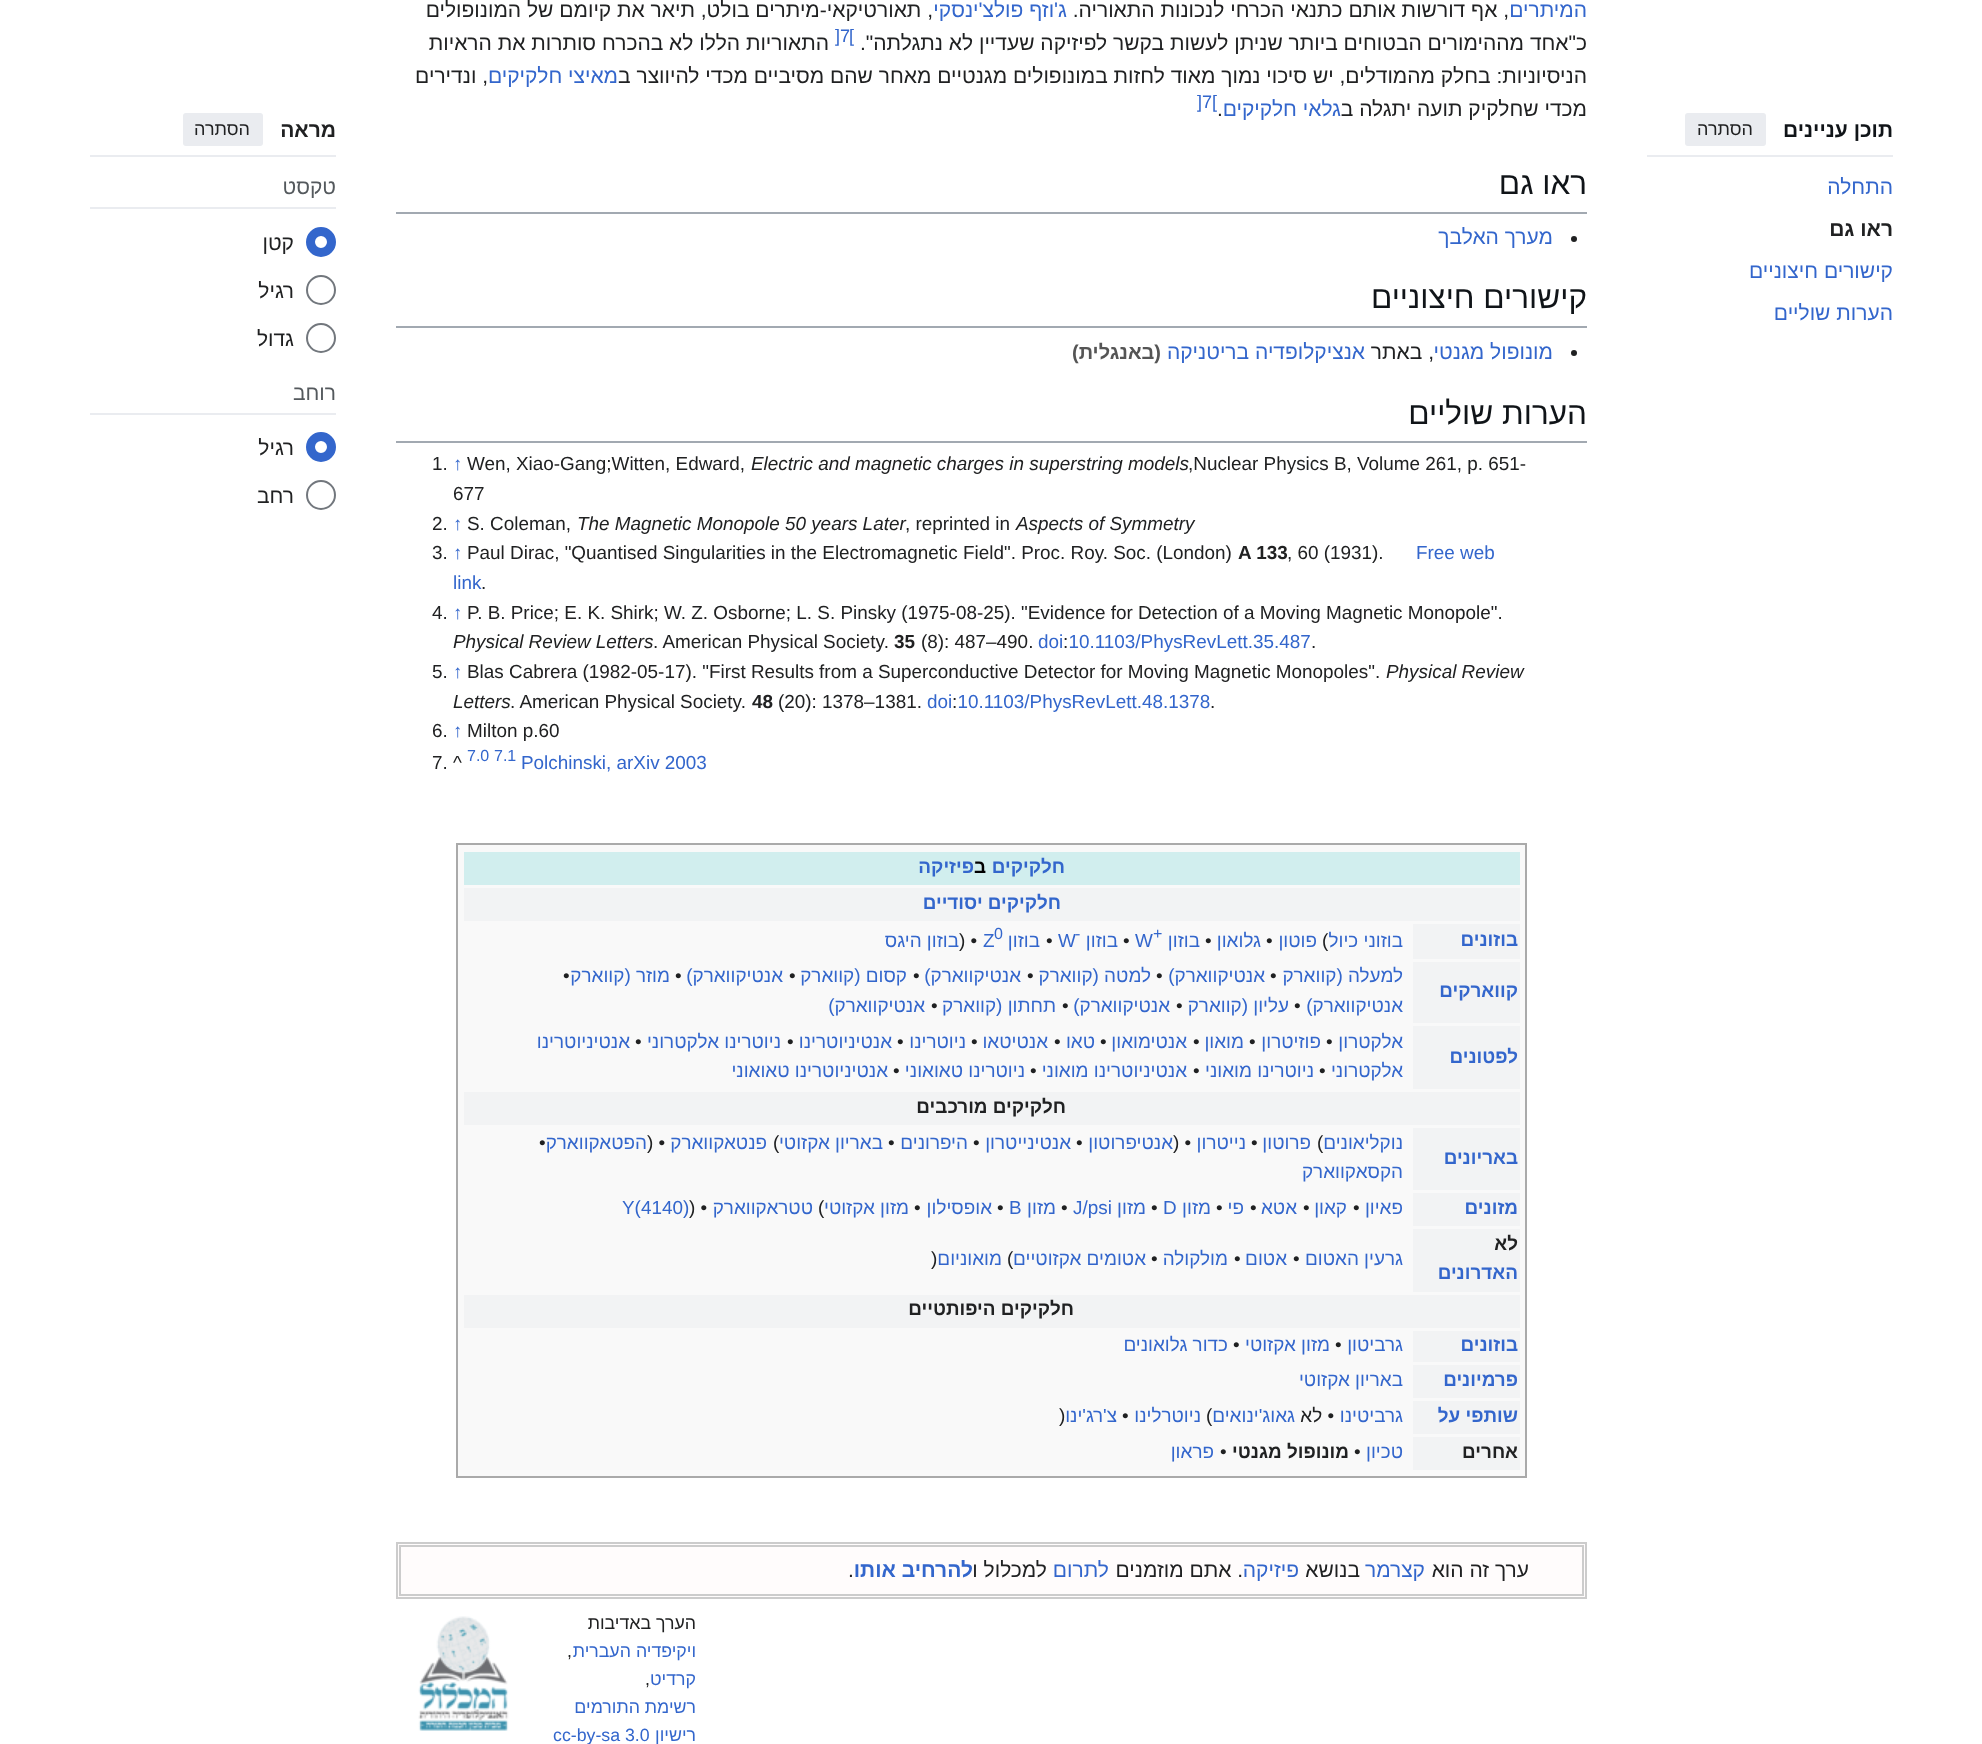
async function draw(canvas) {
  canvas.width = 1982
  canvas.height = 1744
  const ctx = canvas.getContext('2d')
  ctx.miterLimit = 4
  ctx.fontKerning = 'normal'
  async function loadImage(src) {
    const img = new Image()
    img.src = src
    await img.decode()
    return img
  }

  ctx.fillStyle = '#fff'
  ctx.fillRect(0, 0, 1982, 1744)
  ctx.fillStyle = '#eaecf0'
  ctx.fillRect(1647, 155, 246, 2)
  ctx.direction = 'rtl'
  ctx.font = 'bold 21px Liberation Sans'
  ctx.fillStyle = '#101418'
  ctx.fillText('תוכן עניינים', 1893, 137)
  ctx.fillStyle = '#eaecf0'
  ctx.beginPath()
  ctx.roundRect(1685, 113, 81, 33, 3)
  ctx.fill()
  ctx.font = '18px Liberation Sans'
  ctx.fillStyle = '#202122'
  ctx.fillText('הסתרה', 1753, 135)
  ctx.font = '21px Liberation Sans'
  ctx.fillStyle = '#36c'
  ctx.fillText('התחלה', 1893, 194)
  ctx.font = 'bold 21px Liberation Sans'
  ctx.fillStyle = '#202122'
  ctx.fillText('ראו גם', 1893, 236)
  ctx.font = '21px Liberation Sans'
  ctx.fillStyle = '#36c'
  ctx.fillText('קישורים חיצוניים', 1893, 278)
  ctx.fillText('הערות שוליים', 1893, 320)
  ctx.fillText('המיתרים', 1587, 17)
  ctx.fillStyle = '#202122'
  ctx.fillText(', אף דורשות אותם כתנאי הכרחי לנכונות התאוריה.', 1509, 17)
  ctx.fillStyle = '#36c'
  ctx.fillText('ג\'וזף פולצ\'ינסקי', 1067, 17)
  ctx.fillStyle = '#202122'
  ctx.fillText(', תאורטיקאי-מיתרים בולט, תיאר את קיומם של המונופולים', 933, 17)
  ctx.fillText('כ"אחד מההימורים הבטוחים ביותר שניתן לעשות בקשר לפיזיקה שעדיין לא נתגלתה".', 1587, 50)
  ctx.direction = 'ltr'
  ctx.font = '18px Liberation Sans'
  ctx.fillStyle = '#36c'
  ctx.fillText('[', 849, 42)
  ctx.fillText('7', 840, 42)
  ctx.fillText(']', 835, 42)
  ctx.direction = 'rtl'
  ctx.font = '21px Liberation Sans'
  ctx.fillStyle = '#202122'
  ctx.fillText('התאוריות הללו לא בהכרח סותרות את הראיות', 829, 50)
  ctx.fillText('הניסיוניות: בחלק מהמודלים, יש סיכוי נמוך מאוד לחזות במונופולים מגנטיים מאחר שהם מסיביים מכדי להיווצר ב', 1587, 83)
  ctx.fillStyle = '#36c'
  ctx.fillText('מאיצי חלקיקים', 618, 83)
  ctx.fillStyle = '#202122'
  ctx.fillText(', ונדירים', 488, 83)
  ctx.fillText('מכדי שחלקיק תועה יתגלה ב', 1587, 116)
  ctx.fillStyle = '#36c'
  ctx.fillText('גלאי חלקיקים', 1341, 116)
  ctx.direction = 'ltr'
  ctx.fillStyle = '#202122'
  ctx.fillText('.', 1217, 116)
  ctx.font = '18px Liberation Sans'
  ctx.fillStyle = '#36c'
  ctx.fillText('[', 1212, 108)
  ctx.fillText('7', 1202, 108)
  ctx.fillText(']', 1197, 108)
  ctx.fillStyle = '#a2a9b1'
  ctx.fillRect(396, 212, 1191, 2)
  ctx.direction = 'rtl'
  ctx.font = '31.5px Liberation Sans'
  ctx.fillStyle = '#101418'
  ctx.fillText('ראו גם', 1587, 194)
  ctx.fillStyle = '#202122'
  ctx.beginPath()
  ctx.arc(1574, 239, 3, 0, 2 * Math.PI)
  ctx.fill()
  ctx.font = '21px Liberation Sans'
  ctx.fillStyle = '#36c'
  ctx.fillText('מערך האלבך', 1553, 244)
  ctx.fillStyle = '#a2a9b1'
  ctx.fillRect(396, 326, 1191, 2)
  ctx.font = '31.5px Liberation Sans'
  ctx.fillStyle = '#101418'
  ctx.fillText('קישורים חיצוניים', 1587, 308)
  ctx.fillStyle = '#202122'
  ctx.beginPath()
  ctx.arc(1574, 353, 3, 0, 2 * Math.PI)
  ctx.fill()
  ctx.font = '21px Liberation Sans'
  ctx.fillStyle = '#36c'
  ctx.fillText('מונופול מגנטי', 1553, 359)
  ctx.fillStyle = '#202122'
  ctx.fillText(', באתר', 1434, 359)
  ctx.fillStyle = '#36c'
  ctx.fillText('אנציקלופדיה בריטניקה', 1365, 359)
  ctx.font = 'bold 20px Liberation Sans'
  ctx.fillStyle = '#555'
  ctx.fillText('(באנגלית)', 1161, 359)
  ctx.fillStyle = '#a2a9b1'
  ctx.fillRect(396, 441, 1191, 2)
  ctx.font = '31.5px Liberation Sans'
  ctx.fillStyle = '#101418'
  ctx.fillText('הערות שוליים', 1587, 424)
  ctx.direction = 'ltr'
  ctx.font = '18.9px Liberation Sans'
  ctx.fillStyle = '#202122'
  ctx.fillText(',Nuclear Physics B, Volume 261, p. 651-', 1188, 470)
  ctx.font = 'italic 18.9px Liberation Sans'
  ctx.fillText('Electric and magnetic charges in superstring models', 751, 470)
  ctx.font = '18.9px Liberation Sans'
  ctx.fillText('Wen, Xiao-Gang;Witten, Edward,', 467, 470)
  ctx.fillStyle = '#36c'
  ctx.fillText('↑', 453, 470)
  ctx.fillStyle = '#202122'
  ctx.fillText('1.', 432, 470)
  ctx.fillText('677', 453, 500)
  ctx.font = 'italic 18.9px Liberation Sans'
  ctx.fillText('Aspects of Symmetry', 1016, 530)
  ctx.font = '18.9px Liberation Sans'
  ctx.fillText(', reprinted in', 905, 530)
  ctx.font = 'italic 18.9px Liberation Sans'
  ctx.fillText('The Magnetic Monopole 50 years Later', 577, 530)
  ctx.font = '18.9px Liberation Sans'
  ctx.fillText('S. Coleman,', 467, 530)
  ctx.fillStyle = '#36c'
  ctx.fillText('↑', 453, 530)
  ctx.fillStyle = '#202122'
  ctx.fillText('2.', 432, 530)
  ctx.fillStyle = '#36c'
  ctx.fillText('Free web', 1416, 559)
  ctx.fillStyle = '#202122'
  ctx.fillText(', 60 (1931).', 1287, 559)
  ctx.font = 'bold 18.9px Liberation Sans'
  ctx.fillText('A 133', 1238, 559)
  ctx.font = '18.9px Liberation Sans'
  ctx.fillText('Paul Dirac, "Quantised Singularities in the Electromagnetic Field". Proc. Roy. Soc. (London)', 467, 559)
  ctx.fillStyle = '#36c'
  ctx.fillText('↑', 453, 559)
  ctx.fillStyle = '#202122'
  ctx.fillText('3.', 432, 559)
  ctx.fillText('.', 481, 589)
  ctx.fillStyle = '#36c'
  ctx.fillText('link', 453, 589)
  ctx.fillStyle = '#202122'
  ctx.fillText('P. B. Price; E. K. Shirk; W. Z. Osborne; L. S. Pinsky (1975-08-25). "Evidence for Detection of a Moving Magnetic Monopole".', 467, 619)
  ctx.fillStyle = '#36c'
  ctx.fillText('↑', 453, 619)
  ctx.fillStyle = '#202122'
  ctx.fillText('4.', 432, 619)
  ctx.fillStyle = '#36c'
  ctx.fillText('doi 10.1103/PhysRevLett.35.487', 1038, 648)
  ctx.fillStyle = '#202122'
  ctx.fillText('(8): 487–490.', 921, 648)
  ctx.font = 'bold 18.9px Liberation Sans'
  ctx.fillText('35', 894, 648)
  ctx.font = '18.9px Liberation Sans'
  ctx.fillText('. American Physical Society.', 653, 648)
  ctx.font = 'italic 18.9px Liberation Sans'
  ctx.fillText('Physical Review Letters', 453, 648)
  ctx.font = '18.9px Liberation Sans'
  ctx.fillText('.', 1311, 648)
  ctx.fillText(':', 1063, 648)
  ctx.font = 'italic 18.9px Liberation Sans'
  ctx.fillText('Physical Review', 1386, 678)
  ctx.font = '18.9px Liberation Sans'
  ctx.fillText('Blas Cabrera (1982-05-17). "First Results from a Superconductive Detector for Moving Magnetic Monopoles".', 467, 678)
  ctx.fillStyle = '#36c'
  ctx.fillText('↑', 453, 678)
  ctx.fillStyle = '#202122'
  ctx.fillText('5.', 432, 678)
  ctx.fillStyle = '#36c'
  ctx.fillText('doi 10.1103/PhysRevLett.48.1378', 927, 708)
  ctx.fillStyle = '#202122'
  ctx.fillText('(20): 1378–1381.', 778, 708)
  ctx.font = 'bold 18.9px Liberation Sans'
  ctx.fillText('48', 752, 708)
  ctx.font = '18.9px Liberation Sans'
  ctx.fillText('. American Physical Society.', 510, 708)
  ctx.font = 'italic 18.9px Liberation Sans'
  ctx.fillText('Letters', 453, 708)
  ctx.font = '18.9px Liberation Sans'
  ctx.fillText('.', 1210, 708)
  ctx.fillText(':', 952, 708)
  ctx.fillText('Milton p.60', 467, 737)
  ctx.fillStyle = '#36c'
  ctx.fillText('↑', 453, 737)
  ctx.fillStyle = '#202122'
  ctx.fillText('6.', 432, 737)
  ctx.fillStyle = '#36c'
  ctx.fillText('Polchinski, arXiv 2003', 521, 769)
  ctx.font = '16px Liberation Sans'
  ctx.fillText('7.1', 494, 761)
  ctx.fillText('7.0', 467, 761)
  ctx.font = '18.9px Liberation Sans'
  ctx.fillStyle = '#202122'
  ctx.fillText('7. ^', 432, 769)
  ctx.fillStyle = '#f9f9f9'
  ctx.beginPath()
  ctx.rect(457, 844, 1069, 633)
  ctx.fill()
  ctx.strokeStyle = '#aaa'
  ctx.lineWidth = 2
  ctx.stroke()
  ctx.fillStyle = '#d1eeee'
  ctx.fillRect(464, 852, 1056, 33)
  ctx.direction = 'rtl'
  ctx.font = 'bold 18.9px Liberation Sans'
  ctx.fillStyle = '#36c'
  ctx.fillText('חלקיקים', 1065, 873)
  ctx.fillStyle = '#000'
  ctx.fillText('ב', 986, 873)
  ctx.fillStyle = '#36c'
  ctx.fillText('פיזיקה', 974, 873)
  ctx.fillStyle = '#f2f3f4'
  ctx.fillRect(464, 888, 1056, 33)
  ctx.fillStyle = '#36c'
  ctx.fillText('חלקיקים יסודיים', 1061, 909)
  ctx.fillStyle = '#f2f3f4'
  ctx.fillRect(1413, 924, 107, 35)
  ctx.fillStyle = '#36c'
  ctx.fillText('בוזונים', 1518, 946)
  ctx.font = '18.9px Liberation Sans'
  ctx.fillText('בוזוני כיול', 1403, 947)
  ctx.direction = 'ltr'
  ctx.fillStyle = '#202122'
  ctx.fillText('(', 1322, 947)
  ctx.direction = 'rtl'
  ctx.fillStyle = '#36c'
  ctx.fillText('פוטון', 1317, 947)
  ctx.direction = 'ltr'
  ctx.fillStyle = '#202122'
  ctx.fillText('•', 1266, 947)
  ctx.direction = 'rtl'
  ctx.fillStyle = '#36c'
  ctx.fillText('גלואון', 1261, 947)
  ctx.direction = 'ltr'
  ctx.fillStyle = '#202122'
  ctx.fillText('•', 1205, 947)
  ctx.direction = 'rtl'
  ctx.fillStyle = '#36c'
  ctx.fillText('בוזון', 1200, 947)
  ctx.direction = 'ltr'
  ctx.font = '16px Liberation Sans'
  ctx.fillText('+', 1153, 939)
  ctx.font = '18.9px Liberation Sans'
  ctx.fillText('W', 1135, 947)
  ctx.fillStyle = '#202122'
  ctx.fillText('•', 1123, 947)
  ctx.direction = 'rtl'
  ctx.fillStyle = '#36c'
  ctx.fillText('בוזון', 1118, 947)
  ctx.direction = 'ltr'
  ctx.font = '16px Liberation Sans'
  ctx.fillText('-', 1075, 939)
  ctx.font = '18.9px Liberation Sans'
  ctx.fillText('W', 1058, 947)
  ctx.fillStyle = '#202122'
  ctx.fillText('•', 1046, 947)
  ctx.direction = 'rtl'
  ctx.fillStyle = '#36c'
  ctx.fillText('בוזון', 1040, 947)
  ctx.direction = 'ltr'
  ctx.font = '16px Liberation Sans'
  ctx.fillText('0', 994, 939)
  ctx.font = '18.9px Liberation Sans'
  ctx.fillText('Z', 983, 947)
  ctx.fillStyle = '#202122'
  ctx.fillText(') •', 959, 947)
  ctx.direction = 'rtl'
  ctx.fillStyle = '#36c'
  ctx.fillText('בוזון היגס', 959, 947)
  ctx.fillStyle = '#f2f3f4'
  ctx.fillRect(1413, 962, 107, 61)
  ctx.font = 'bold 18.9px Liberation Sans'
  ctx.fillStyle = '#36c'
  ctx.fillText('קווארקים', 1518, 997)
  ctx.font = '18.9px Liberation Sans'
  ctx.fillText('למעלה (קווארק', 1403, 982)
  ctx.direction = 'ltr'
  ctx.fillStyle = '#202122'
  ctx.fillText('•', 1270, 982)
  ctx.direction = 'rtl'
  ctx.fillStyle = '#36c'
  ctx.fillText('אנטיקווארק)', 1265, 982)
  ctx.direction = 'ltr'
  ctx.fillStyle = '#202122'
  ctx.fillText('•', 1156, 982)
  ctx.direction = 'rtl'
  ctx.fillStyle = '#36c'
  ctx.fillText('למטה (קווארק', 1151, 982)
  ctx.direction = 'ltr'
  ctx.fillStyle = '#202122'
  ctx.fillText('•', 1027, 982)
  ctx.direction = 'rtl'
  ctx.fillStyle = '#36c'
  ctx.fillText('אנטיקווארק)', 1021, 982)
  ctx.direction = 'ltr'
  ctx.fillStyle = '#202122'
  ctx.fillText('•', 913, 982)
  ctx.direction = 'rtl'
  ctx.fillStyle = '#36c'
  ctx.fillText('קסום (קווארק', 907, 982)
  ctx.direction = 'ltr'
  ctx.fillStyle = '#202122'
  ctx.fillText('•', 789, 982)
  ctx.direction = 'rtl'
  ctx.fillStyle = '#36c'
  ctx.fillText('אנטיקווארק)', 783, 982)
  ctx.direction = 'ltr'
  ctx.fillStyle = '#202122'
  ctx.fillText('•', 675, 982)
  ctx.direction = 'rtl'
  ctx.fillStyle = '#36c'
  ctx.fillText('מוזר (קווארק', 670, 982)
  ctx.direction = 'ltr'
  ctx.fillStyle = '#202122'
  ctx.fillText('•', 563, 982)
  ctx.direction = 'rtl'
  ctx.fillStyle = '#36c'
  ctx.fillText('אנטיקווארק)', 1403, 1012)
  ctx.direction = 'ltr'
  ctx.fillStyle = '#202122'
  ctx.fillText('•', 1294, 1012)
  ctx.direction = 'rtl'
  ctx.fillStyle = '#36c'
  ctx.fillText('עליון (קווארק', 1289, 1012)
  ctx.direction = 'ltr'
  ctx.fillStyle = '#202122'
  ctx.fillText('•', 1176, 1012)
  ctx.direction = 'rtl'
  ctx.fillStyle = '#36c'
  ctx.fillText('אנטיקווארק)', 1170, 1012)
  ctx.direction = 'ltr'
  ctx.fillStyle = '#202122'
  ctx.fillText('•', 1062, 1012)
  ctx.direction = 'rtl'
  ctx.fillStyle = '#36c'
  ctx.fillText('תחתון (קווארק', 1056, 1012)
  ctx.direction = 'ltr'
  ctx.fillStyle = '#202122'
  ctx.fillText('•', 931, 1012)
  ctx.direction = 'rtl'
  ctx.fillStyle = '#36c'
  ctx.fillText('אנטיקווארק)', 925, 1012)
  ctx.fillStyle = '#f2f3f4'
  ctx.fillRect(1413, 1026, 107, 63)
  ctx.font = 'bold 18.9px Liberation Sans'
  ctx.fillStyle = '#36c'
  ctx.fillText('לפטונים', 1518, 1063)
  ctx.font = '18.9px Liberation Sans'
  ctx.fillText('אלקטרון', 1403, 1048)
  ctx.direction = 'ltr'
  ctx.fillStyle = '#202122'
  ctx.fillText('•', 1326, 1048)
  ctx.direction = 'rtl'
  ctx.fillStyle = '#36c'
  ctx.fillText('פוזיטרון', 1321, 1048)
  ctx.direction = 'ltr'
  ctx.fillStyle = '#202122'
  ctx.fillText('•', 1249, 1048)
  ctx.direction = 'rtl'
  ctx.fillStyle = '#36c'
  ctx.fillText('מואון', 1244, 1048)
  ctx.direction = 'ltr'
  ctx.fillStyle = '#202122'
  ctx.fillText('•', 1193, 1048)
  ctx.direction = 'rtl'
  ctx.fillStyle = '#36c'
  ctx.fillText('אנטימואון', 1187, 1048)
  ctx.direction = 'ltr'
  ctx.fillStyle = '#202122'
  ctx.fillText('•', 1100, 1048)
  ctx.direction = 'rtl'
  ctx.fillStyle = '#36c'
  ctx.fillText('טאו', 1095, 1048)
  ctx.direction = 'ltr'
  ctx.fillStyle = '#202122'
  ctx.fillText('•', 1054, 1048)
  ctx.direction = 'rtl'
  ctx.fillStyle = '#36c'
  ctx.fillText('אנטיטאו', 1048, 1048)
  ctx.direction = 'ltr'
  ctx.fillStyle = '#202122'
  ctx.fillText('•', 971, 1048)
  ctx.direction = 'rtl'
  ctx.fillStyle = '#36c'
  ctx.fillText('ניוטרינו', 966, 1048)
  ctx.direction = 'ltr'
  ctx.fillStyle = '#202122'
  ctx.fillText('•', 897, 1048)
  ctx.direction = 'rtl'
  ctx.fillStyle = '#36c'
  ctx.fillText('אנטיניוטרינו', 892, 1048)
  ctx.direction = 'ltr'
  ctx.fillStyle = '#202122'
  ctx.fillText('•', 787, 1048)
  ctx.direction = 'rtl'
  ctx.fillStyle = '#36c'
  ctx.fillText('ניוטרינו אלקטרוני', 781, 1048)
  ctx.direction = 'ltr'
  ctx.fillStyle = '#202122'
  ctx.fillText('•', 635, 1048)
  ctx.direction = 'rtl'
  ctx.fillStyle = '#36c'
  ctx.fillText('אנטיניוטרינו', 630, 1048)
  ctx.fillText('אלקטרוני', 1403, 1077)
  ctx.direction = 'ltr'
  ctx.fillStyle = '#202122'
  ctx.fillText('•', 1319, 1077)
  ctx.direction = 'rtl'
  ctx.fillStyle = '#36c'
  ctx.fillText('ניוטרינו מואוני', 1314, 1077)
  ctx.direction = 'ltr'
  ctx.fillStyle = '#202122'
  ctx.fillText('•', 1193, 1077)
  ctx.direction = 'rtl'
  ctx.fillStyle = '#36c'
  ctx.fillText('אנטיניוטרינו מואוני', 1187, 1077)
  ctx.direction = 'ltr'
  ctx.fillStyle = '#202122'
  ctx.fillText('•', 1030, 1077)
  ctx.direction = 'rtl'
  ctx.fillStyle = '#36c'
  ctx.fillText('ניוטרינו טאואוני', 1025, 1077)
  ctx.direction = 'ltr'
  ctx.fillStyle = '#202122'
  ctx.fillText('•', 893, 1077)
  ctx.direction = 'rtl'
  ctx.fillStyle = '#36c'
  ctx.fillText('אנטיניוטרינו טאואוני', 888, 1077)
  ctx.fillStyle = '#f2f3f4'
  ctx.fillRect(464, 1092, 1056, 33)
  ctx.font = 'bold 18.9px Liberation Sans'
  ctx.fillStyle = '#202122'
  ctx.fillText('חלקיקים מורכבים', 1066, 1113)
  ctx.fillStyle = '#f2f3f4'
  ctx.fillRect(1413, 1128, 107, 62)
  ctx.fillStyle = '#36c'
  ctx.fillText('באריונים', 1518, 1164)
  ctx.font = '18.9px Liberation Sans'
  ctx.fillText('נוקליאונים', 1403, 1149)
  ctx.direction = 'ltr'
  ctx.fillStyle = '#202122'
  ctx.fillText('(', 1317, 1149)
  ctx.direction = 'rtl'
  ctx.fillStyle = '#36c'
  ctx.fillText('פרוטון', 1311, 1149)
  ctx.direction = 'ltr'
  ctx.fillStyle = '#202122'
  ctx.fillText('•', 1251, 1149)
  ctx.direction = 'rtl'
  ctx.fillStyle = '#36c'
  ctx.fillText('נייטרון', 1246, 1149)
  ctx.direction = 'ltr'
  ctx.fillStyle = '#202122'
  ctx.fillText(') •', 1173, 1149)
  ctx.direction = 'rtl'
  ctx.fillStyle = '#36c'
  ctx.fillText('אנטיפרוטון', 1173, 1149)
  ctx.direction = 'ltr'
  ctx.fillStyle = '#202122'
  ctx.fillText('•', 1076, 1149)
  ctx.direction = 'rtl'
  ctx.fillStyle = '#36c'
  ctx.fillText('אנטינייטרון', 1071, 1149)
  ctx.direction = 'ltr'
  ctx.fillStyle = '#202122'
  ctx.fillText('•', 973, 1149)
  ctx.direction = 'rtl'
  ctx.fillStyle = '#36c'
  ctx.fillText('היפרונים', 968, 1149)
  ctx.direction = 'ltr'
  ctx.fillStyle = '#202122'
  ctx.fillText('•', 888, 1149)
  ctx.direction = 'rtl'
  ctx.fillStyle = '#36c'
  ctx.fillText('באריון אקזוטי', 883, 1149)
  ctx.direction = 'ltr'
  ctx.fillStyle = '#202122'
  ctx.fillText('(', 773, 1149)
  ctx.direction = 'rtl'
  ctx.fillStyle = '#36c'
  ctx.fillText('פנטאקווארק', 767, 1149)
  ctx.direction = 'ltr'
  ctx.fillStyle = '#202122'
  ctx.fillText(') •', 647, 1149)
  ctx.direction = 'rtl'
  ctx.fillStyle = '#36c'
  ctx.fillText('הפטאקווארק', 647, 1149)
  ctx.direction = 'ltr'
  ctx.fillStyle = '#202122'
  ctx.fillText('•', 539, 1149)
  ctx.direction = 'rtl'
  ctx.fillStyle = '#36c'
  ctx.fillText('הקסאקווארק', 1403, 1178)
  ctx.fillStyle = '#f2f3f4'
  ctx.fillRect(1413, 1193, 107, 33)
  ctx.font = 'bold 18.9px Liberation Sans'
  ctx.fillStyle = '#36c'
  ctx.fillText('מזונים', 1518, 1214)
  ctx.font = '18.9px Liberation Sans'
  ctx.fillText('פאיון', 1403, 1214)
  ctx.direction = 'ltr'
  ctx.fillStyle = '#202122'
  ctx.fillText('•', 1353, 1214)
  ctx.direction = 'rtl'
  ctx.fillStyle = '#36c'
  ctx.fillText('קאון', 1347, 1214)
  ctx.direction = 'ltr'
  ctx.fillStyle = '#202122'
  ctx.fillText('•', 1303, 1214)
  ctx.direction = 'rtl'
  ctx.fillStyle = '#36c'
  ctx.fillText('אטא', 1297, 1214)
  ctx.direction = 'ltr'
  ctx.fillStyle = '#202122'
  ctx.fillText('•', 1250, 1214)
  ctx.direction = 'rtl'
  ctx.fillStyle = '#36c'
  ctx.fillText('פי', 1244, 1214)
  ctx.direction = 'ltr'
  ctx.fillStyle = '#202122'
  ctx.fillText('•', 1216, 1214)
  ctx.direction = 'rtl'
  ctx.fillStyle = '#36c'
  ctx.fillText('מזון', 1211, 1214)
  ctx.direction = 'ltr'
  ctx.fillText('D', 1163, 1214)
  ctx.fillStyle = '#202122'
  ctx.fillText('•', 1151, 1214)
  ctx.direction = 'rtl'
  ctx.fillStyle = '#36c'
  ctx.fillText('מזון', 1146, 1214)
  ctx.direction = 'ltr'
  ctx.fillText('J/psi', 1073, 1214)
  ctx.fillStyle = '#202122'
  ctx.fillText('•', 1061, 1214)
  ctx.direction = 'rtl'
  ctx.fillStyle = '#36c'
  ctx.fillText('מזון', 1056, 1214)
  ctx.direction = 'ltr'
  ctx.fillText('B', 1009, 1214)
  ctx.fillStyle = '#202122'
  ctx.fillText('•', 997, 1214)
  ctx.direction = 'rtl'
  ctx.fillStyle = '#36c'
  ctx.fillText('אופסילון', 992, 1214)
  ctx.direction = 'ltr'
  ctx.fillStyle = '#202122'
  ctx.fillText('•', 914, 1214)
  ctx.direction = 'rtl'
  ctx.fillStyle = '#36c'
  ctx.fillText('מזון אקזוטי', 909, 1214)
  ctx.direction = 'ltr'
  ctx.fillStyle = '#202122'
  ctx.fillText('(', 818, 1214)
  ctx.direction = 'rtl'
  ctx.fillStyle = '#36c'
  ctx.fillText('טטראקווארק', 813, 1214)
  ctx.direction = 'ltr'
  ctx.fillStyle = '#202122'
  ctx.fillText(') •', 689, 1214)
  ctx.fillStyle = '#36c'
  ctx.fillText('Y(4140)', 622, 1214)
  ctx.fillStyle = '#f2f3f4'
  ctx.fillRect(1413, 1229, 107, 63)
  ctx.direction = 'rtl'
  ctx.font = 'bold 18.9px Liberation Sans'
  ctx.fillStyle = '#202122'
  ctx.fillText('לא', 1518, 1250)
  ctx.fillStyle = '#36c'
  ctx.fillText('האדרונים', 1518, 1279)
  ctx.font = '18.9px Liberation Sans'
  ctx.fillText('גרעין האטום', 1403, 1265)
  ctx.direction = 'ltr'
  ctx.fillStyle = '#202122'
  ctx.fillText('•', 1293, 1265)
  ctx.direction = 'rtl'
  ctx.fillStyle = '#36c'
  ctx.fillText('אטום', 1287, 1265)
  ctx.direction = 'ltr'
  ctx.fillStyle = '#202122'
  ctx.fillText('•', 1234, 1265)
  ctx.direction = 'rtl'
  ctx.fillStyle = '#36c'
  ctx.fillText('מולקולה', 1228, 1265)
  ctx.direction = 'ltr'
  ctx.fillStyle = '#202122'
  ctx.fillText('•', 1151, 1265)
  ctx.direction = 'rtl'
  ctx.fillStyle = '#36c'
  ctx.fillText('אטומים אקזוטיים', 1146, 1265)
  ctx.direction = 'ltr'
  ctx.fillStyle = '#202122'
  ctx.fillText('(', 1007, 1265)
  ctx.direction = 'rtl'
  ctx.fillStyle = '#36c'
  ctx.fillText('מואוניום', 1002, 1265)
  ctx.direction = 'ltr'
  ctx.fillStyle = '#202122'
  ctx.fillText(')', 931, 1265)
  ctx.fillStyle = '#f2f3f4'
  ctx.fillRect(464, 1295, 1056, 33)
  ctx.direction = 'rtl'
  ctx.font = 'bold 18.9px Liberation Sans'
  ctx.fillStyle = '#202122'
  ctx.fillText('חלקיקים היפותטיים', 1074, 1315)
  ctx.fillStyle = '#f2f3f4'
  ctx.fillRect(1413, 1331, 107, 31)
  ctx.fillStyle = '#36c'
  ctx.fillText('בוזונים', 1518, 1351)
  ctx.font = '18.9px Liberation Sans'
  ctx.fillText('גרביטון', 1403, 1351)
  ctx.direction = 'ltr'
  ctx.fillStyle = '#202122'
  ctx.fillText('•', 1335, 1351)
  ctx.direction = 'rtl'
  ctx.fillStyle = '#36c'
  ctx.fillText('מזון אקזוטי', 1330, 1351)
  ctx.direction = 'ltr'
  ctx.fillStyle = '#202122'
  ctx.fillText('•', 1233, 1351)
  ctx.direction = 'rtl'
  ctx.fillStyle = '#36c'
  ctx.fillText('כדור גלואונים', 1228, 1351)
  ctx.fillStyle = '#f2f3f4'
  ctx.fillRect(1413, 1365, 107, 33)
  ctx.font = 'bold 18.9px Liberation Sans'
  ctx.fillStyle = '#36c'
  ctx.fillText('פרמיונים', 1518, 1386)
  ctx.font = '18.9px Liberation Sans'
  ctx.fillText('באריון אקזוטי', 1403, 1386)
  ctx.fillStyle = '#f2f3f4'
  ctx.fillRect(1413, 1401, 107, 33)
  ctx.font = 'bold 18.9px Liberation Sans'
  ctx.fillStyle = '#36c'
  ctx.fillText('שותפי על', 1518, 1422)
  ctx.font = '18.9px Liberation Sans'
  ctx.fillText('גרביטינו', 1403, 1422)
  ctx.fillStyle = '#202122'
  ctx.fillText('• לא', 1334, 1422)
  ctx.fillStyle = '#36c'
  ctx.fillText('גאוג\'ינואים', 1295, 1422)
  ctx.direction = 'ltr'
  ctx.fillStyle = '#202122'
  ctx.fillText('(', 1206, 1422)
  ctx.direction = 'rtl'
  ctx.fillStyle = '#36c'
  ctx.fillText('ניוטרלינו', 1201, 1422)
  ctx.direction = 'ltr'
  ctx.fillStyle = '#202122'
  ctx.fillText('•', 1122, 1422)
  ctx.direction = 'rtl'
  ctx.fillStyle = '#36c'
  ctx.fillText('צ\'רג\'ינו', 1117, 1422)
  ctx.direction = 'ltr'
  ctx.fillStyle = '#202122'
  ctx.fillText(')', 1059, 1422)
  ctx.fillStyle = '#f2f3f4'
  ctx.fillRect(1413, 1437, 107, 33)
  ctx.direction = 'rtl'
  ctx.font = 'bold 18.9px Liberation Sans'
  ctx.fillStyle = '#202122'
  ctx.fillText('אחרים', 1518, 1458)
  ctx.font = '18.9px Liberation Sans'
  ctx.fillStyle = '#36c'
  ctx.fillText('טכיון', 1403, 1458)
  ctx.direction = 'ltr'
  ctx.fillStyle = '#202122'
  ctx.fillText('•', 1354, 1458)
  ctx.direction = 'rtl'
  ctx.font = 'bold 18.9px Liberation Sans'
  ctx.fillText('מונופול מגנטי', 1349, 1458)
  ctx.direction = 'ltr'
  ctx.font = '18.9px Liberation Sans'
  ctx.fillText('•', 1220, 1458)
  ctx.direction = 'rtl'
  ctx.fillStyle = '#36c'
  ctx.fillText('פראון', 1214, 1458)
  ctx.fillStyle = '#fffcfc'
  ctx.beginPath()
  ctx.rect(397, 1543, 1189, 55)
  ctx.fill()
  ctx.strokeStyle = '#ccc'
  ctx.stroke()
  ctx.strokeRect(400, 1546, 1183, 49)
  ctx.font = '21px Liberation Sans'
  ctx.fillStyle = '#202122'
  ctx.fillText('ערך זה הוא', 1529, 1577)
  ctx.fillStyle = '#36c'
  ctx.fillText('קצרמר', 1425, 1577)
  ctx.fillStyle = '#202122'
  ctx.fillText('בנושא', 1360, 1577)
  ctx.fillStyle = '#36c'
  ctx.fillText('פיזיקה', 1299, 1577)
  ctx.fillStyle = '#202122'
  ctx.fillText('. אתם מוזמנים', 1243, 1577)
  ctx.fillStyle = '#36c'
  ctx.fillText('לתרום', 1109, 1577)
  ctx.fillStyle = '#202122'
  ctx.fillText('למכלול ו', 1047, 1577)
  ctx.font = 'bold 21px Liberation Sans'
  ctx.fillStyle = '#36c'
  ctx.fillText('להרחיב אותו', 973, 1577)
  ctx.direction = 'ltr'
  ctx.font = '21px Liberation Sans'
  ctx.fillStyle = '#202122'
  ctx.fillText('.', 848, 1577)
  ctx.direction = 'rtl'
  ctx.font = '17.75px Liberation Sans'
  ctx.fillText('הערך באדיבות', 696, 1629)
  ctx.fillStyle = '#36c'
  ctx.fillText('ויקיפדיה העברית', 696, 1657)
  ctx.direction = 'ltr'
  ctx.fillStyle = '#202122'
  ctx.fillText(',', 567, 1657)
  ctx.direction = 'rtl'
  ctx.fillStyle = '#36c'
  ctx.fillText('קרדיט', 696, 1685)
  ctx.direction = 'ltr'
  ctx.fillStyle = '#202122'
  ctx.fillText(',', 645, 1685)
  ctx.direction = 'rtl'
  ctx.fillStyle = '#36c'
  ctx.fillText('רשימת התורמים', 696, 1713)
  ctx.fillText('רישיון', 696, 1741)
  ctx.direction = 'ltr'
  ctx.fillText('cc-by-sa 3.0', 553, 1741)
  ctx.drawImage(await loadImage('image0.png'), 418, 1616, 91, 115)
  ctx.fillStyle = '#eaecf0'
  ctx.fillRect(90, 155, 246, 2)
  ctx.direction = 'rtl'
  ctx.font = 'bold 21px Liberation Sans'
  ctx.fillStyle = '#202122'
  ctx.fillText('מראה', 336, 137)
  ctx.fillStyle = '#eaecf0'
  ctx.beginPath()
  ctx.roundRect(183, 113, 80, 33, 3)
  ctx.fill()
  ctx.font = '18px Liberation Sans'
  ctx.fillStyle = '#202122'
  ctx.fillText('הסתרה', 250, 135)
  ctx.fillStyle = '#eaecf0'
  ctx.fillRect(90, 207, 246, 2)
  ctx.font = '21px Liberation Sans'
  ctx.fillStyle = '#54595d'
  ctx.fillText('טקסט', 336, 194)
  ctx.beginPath()
  ctx.arc(321, 242, 10.5, 0, 2 * Math.PI)
  ctx.strokeStyle = '#36c'
  ctx.lineWidth = 9
  ctx.stroke()
  ctx.fillStyle = '#202122'
  ctx.fillText('קטן', 294, 250)
  ctx.beginPath()
  ctx.arc(321, 290, 14, 0, 2 * Math.PI)
  ctx.strokeStyle = '#72777d'
  ctx.lineWidth = 2
  ctx.stroke()
  ctx.fillText('רגיל', 294, 298)
  ctx.beginPath()
  ctx.arc(321, 338, 14, 0, 2 * Math.PI)
  ctx.stroke()
  ctx.fillText('גדול', 294, 346)
  ctx.fillStyle = '#eaecf0'
  ctx.fillRect(90, 413, 246, 2)
  ctx.fillStyle = '#54595d'
  ctx.fillText('רוחב', 336, 400)
  ctx.beginPath()
  ctx.arc(321, 447, 10.5, 0, 2 * Math.PI)
  ctx.strokeStyle = '#36c'
  ctx.lineWidth = 9
  ctx.stroke()
  ctx.fillStyle = '#202122'
  ctx.fillText('רגיל', 294, 455)
  ctx.beginPath()
  ctx.arc(321, 495, 14, 0, 2 * Math.PI)
  ctx.strokeStyle = '#72777d'
  ctx.lineWidth = 2
  ctx.stroke()
  ctx.fillText('רחב', 294, 503)
}

draw(document.querySelector('canvas'))
